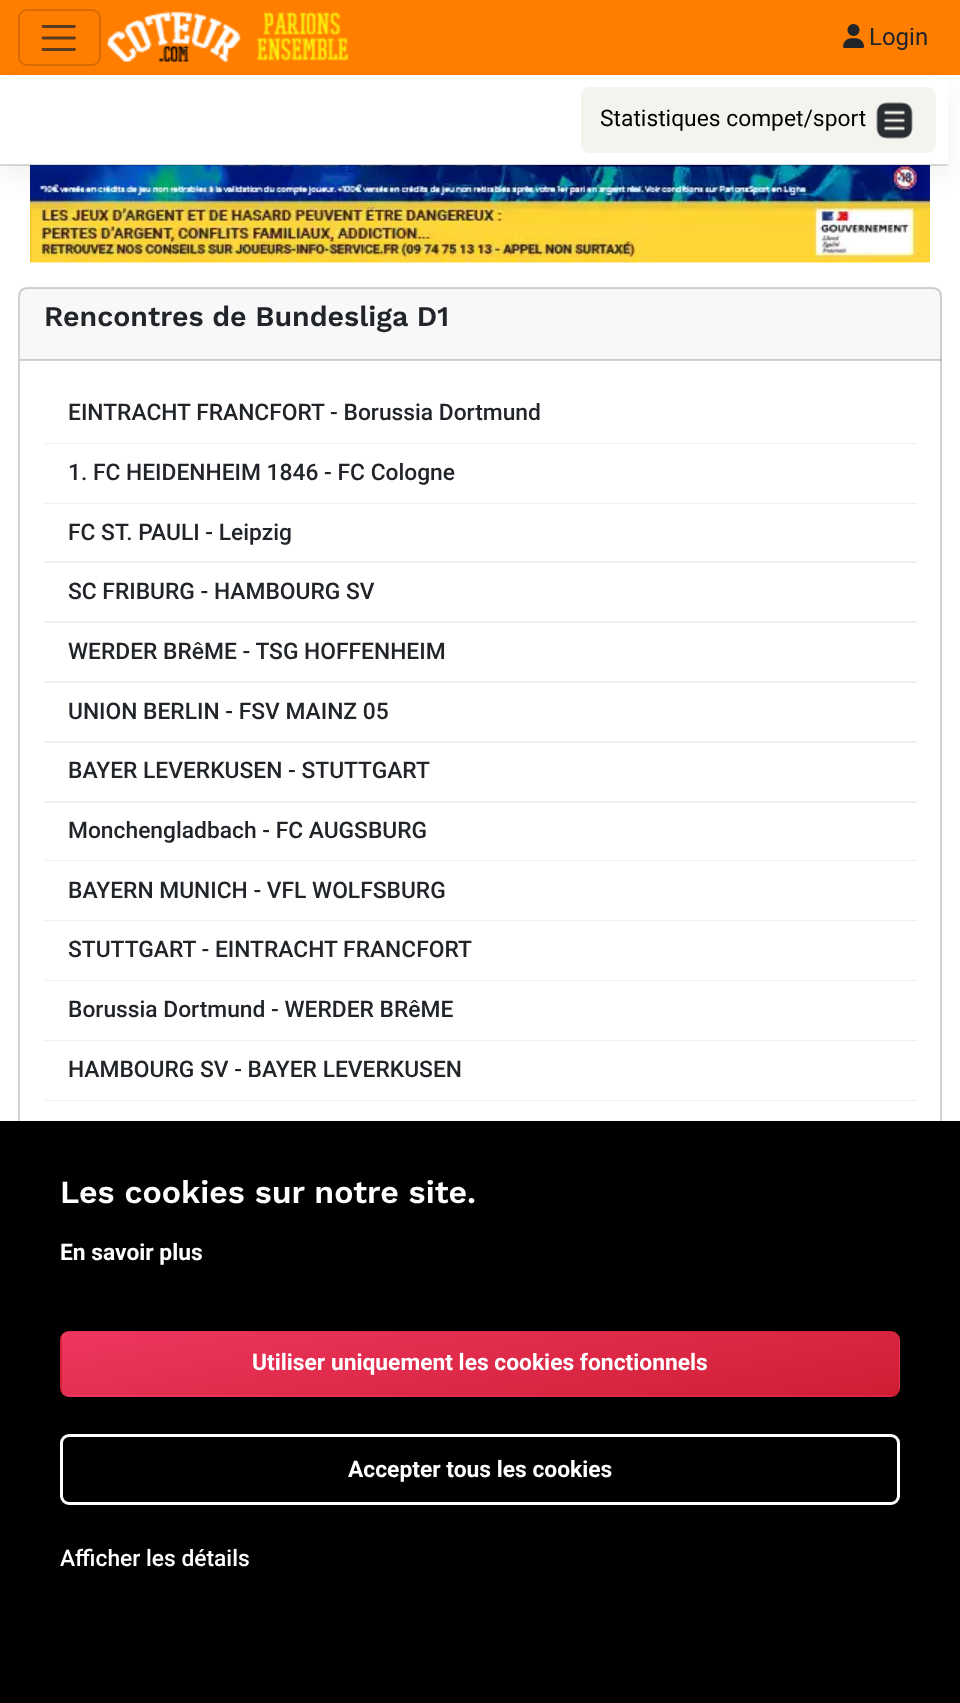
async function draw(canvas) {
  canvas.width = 960
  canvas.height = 1703
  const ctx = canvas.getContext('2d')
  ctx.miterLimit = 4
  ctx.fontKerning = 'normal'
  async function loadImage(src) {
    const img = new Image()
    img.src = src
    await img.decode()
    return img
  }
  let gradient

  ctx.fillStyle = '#fff'
  ctx.fillRect(0, 0, 960, 1703)
  ctx.fillStyle = '#ff7e00'
  ctx.fillRect(0, 0, 960, 75)
  ctx.beginPath()
  ctx.roundRect(19, 10, 81, 55, 8)
  ctx.strokeStyle = '#d96b00'
  ctx.lineWidth = 2
  ctx.stroke()
  ctx.beginPath()
  ctx.moveTo(43, 26.5)
  ctx.lineTo(74.5, 26.5)
  ctx.moveTo(43, 38)
  ctx.lineTo(74.5, 38)
  ctx.moveTo(43, 49.5)
  ctx.lineTo(74.5, 49.5)
  ctx.strokeStyle = '#593b1f'
  ctx.lineWidth = 2.8
  ctx.lineCap = 'round'
  ctx.stroke()
  ctx.drawImage(await loadImage('image0.png'), 106, 11, 243, 53)
  ctx.drawImage(await loadImage('image1.png'), 843, 24, 21, 24)
  ctx.font = '24px Roboto'
  ctx.fillStyle = '#212529'
  ctx.fillText('Login', 869, 45)
  ctx.drawImage(await loadImage('image3.png'), 30, 165, 900, 98)
  ctx.fillStyle = '#0000000d'
  ctx.filter = 'blur(12px)'
  ctx.beginPath()
  ctx.rect(0, 87, 948, 90)
  ctx.fill()
  ctx.filter = 'none'
  ctx.fillStyle = '#fff'
  ctx.fillRect(0, 77, 948, 88)
  ctx.fillStyle = '#00000026'
  ctx.fillRect(0, 164, 948, 2)
  ctx.fillStyle = '#f5f3ee'
  ctx.beginPath()
  ctx.roundRect(582, 88, 353, 64, 8)
  ctx.fill()
  ctx.strokeStyle = '#f5f3ee'
  ctx.lineWidth = 2
  ctx.stroke()
  ctx.font = '22.8px Roboto'
  ctx.fillStyle = '#000'
  ctx.fillText('Statistiques compet/sport', 600, 126)
  ctx.drawImage(await loadImage('image2.png'), 876, 102, 37, 37)
  ctx.beginPath()
  ctx.roundRect(19, 288, 922, 1193, 8)
  ctx.strokeStyle = '#d2d2d2'
  ctx.stroke()
  ctx.fillStyle = '#21252908'
  ctx.fillRect(20, 288, 921, 72)
  ctx.fillStyle = '#0000002e'
  ctx.fillRect(20, 359, 921, 2)
  ctx.font = '600 28.5px Work Sans'
  ctx.fillStyle = '#212529'
  ctx.fillText('Rencontres de Bundesliga D1', 44, 326)
  ctx.fillStyle = '#f0f0f0'
  ctx.fillRect(44, 443, 873, 1)
  ctx.font = '500 22.8px Roboto'
  ctx.fillStyle = '#212529'
  ctx.fillText('EINTRACHT FRANCFORT - Borussia Dortmund', 68, 420)
  ctx.fillStyle = '#f0f0f0'
  ctx.fillRect(44, 503, 873, 1)
  ctx.fillStyle = '#212529'
  ctx.fillText('1. FC HEIDENHEIM 1846 - FC Cologne', 68, 480)
  ctx.fillStyle = '#f0f0f0'
  ctx.fillRect(44, 561, 873, 2)
  ctx.fillStyle = '#212529'
  ctx.fillText('FC ST. PAULI - Leipzig', 68, 540)
  ctx.fillStyle = '#f0f0f0'
  ctx.fillRect(44, 621, 873, 2)
  ctx.fillStyle = '#212529'
  ctx.fillText('SC FRIBURG - HAMBOURG SV', 68, 599)
  ctx.fillStyle = '#f0f0f0'
  ctx.fillRect(44, 681, 873, 2)
  ctx.fillStyle = '#212529'
  ctx.fillText('WERDER BRêME - TSG HOFFENHEIM', 68, 659)
  ctx.fillStyle = '#f0f0f0'
  ctx.fillRect(44, 741, 873, 2)
  ctx.fillStyle = '#212529'
  ctx.fillText('UNION BERLIN - FSV MAINZ 05', 68, 719)
  ctx.fillStyle = '#f0f0f0'
  ctx.fillRect(44, 801, 873, 2)
  ctx.fillStyle = '#212529'
  ctx.fillText('BAYER LEVERKUSEN - STUTTGART', 68, 778)
  ctx.fillStyle = '#f0f0f0'
  ctx.fillRect(44, 860, 873, 1)
  ctx.fillStyle = '#212529'
  ctx.fillText('Monchengladbach - FC AUGSBURG', 68, 838)
  ctx.fillStyle = '#f0f0f0'
  ctx.fillRect(44, 920, 873, 1)
  ctx.fillStyle = '#212529'
  ctx.fillText('BAYERN MUNICH - VFL WOLFSBURG', 68, 898)
  ctx.fillStyle = '#f0f0f0'
  ctx.fillRect(44, 980, 873, 1)
  ctx.fillStyle = '#212529'
  ctx.fillText('STUTTGART - EINTRACHT FRANCFORT', 68, 957)
  ctx.fillStyle = '#f0f0f0'
  ctx.fillRect(44, 1040, 873, 1)
  ctx.fillStyle = '#212529'
  ctx.fillText('Borussia Dortmund - WERDER BRêME', 68, 1017)
  ctx.fillStyle = '#f0f0f0'
  ctx.fillRect(44, 1100, 873, 1)
  ctx.fillStyle = '#212529'
  ctx.fillText('HAMBOURG SV - BAYER LEVERKUSEN', 68, 1077)
  ctx.fillStyle = '#000'
  ctx.fillRect(0, 1121, 960, 582)
  ctx.font = '600 32.1px Work Sans'
  ctx.fillStyle = '#fff'
  ctx.fillText('Les cookies sur notre site.', 60, 1203)
  ctx.font = 'bold 22.8px Roboto'
  ctx.fillText('En savoir plus', 60, 1260)
  ctx.save()
  ctx.beginPath()
  ctx.roundRect(60, 1331, 840, 66, 9)
  ctx.clip()
  gradient = ctx.createLinearGradient(501, 1408, 459, 1193)
  gradient.addColorStop(0, '#cf1e34')
  gradient.addColorStop(1, '#ee365f')
  ctx.fillStyle = gradient
  ctx.fillRect(62, 1331, 837, 1)
  gradient = ctx.createLinearGradient(-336, 1471, -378, 1256)
  gradient.addColorStop(0, '#cf1e34')
  gradient.addColorStop(1, '#ee365f')
  ctx.fillStyle = gradient
  ctx.fillRect(60, 1332, 2, 63)
  gradient = ctx.createLinearGradient(501, 1471, 459, 1256)
  gradient.addColorStop(0, '#cf1e34')
  gradient.addColorStop(1, '#ee365f')
  ctx.fillStyle = gradient
  ctx.fillRect(62, 1332, 837, 63)
  gradient = ctx.createLinearGradient(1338, 1471, 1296, 1256)
  gradient.addColorStop(0, '#cf1e34')
  gradient.addColorStop(1, '#ee365f')
  ctx.fillStyle = gradient
  ctx.fillRect(899, 1332, 1, 63)
  gradient = ctx.createLinearGradient(501, 1534, 459, 1319)
  gradient.addColorStop(0, '#cf1e34')
  gradient.addColorStop(1, '#ee365f')
  ctx.fillStyle = gradient
  ctx.fillRect(62, 1395, 837, 2)
  ctx.restore()
  ctx.fillText('Utiliser uniquement les cookies fonctionnels', 252, 1370)
  ctx.beginPath()
  ctx.roundRect(61.5, 1435.5, 837, 68, 7.5)
  ctx.strokeStyle = '#fff'
  ctx.lineWidth = 3
  ctx.stroke()
  ctx.fillText('Accepter tous les cookies', 348, 1477)
  ctx.font = '500 22.8px Roboto'
  ctx.fillText('Afficher les détails', 60, 1566)
}

draw(document.querySelector('canvas'))
